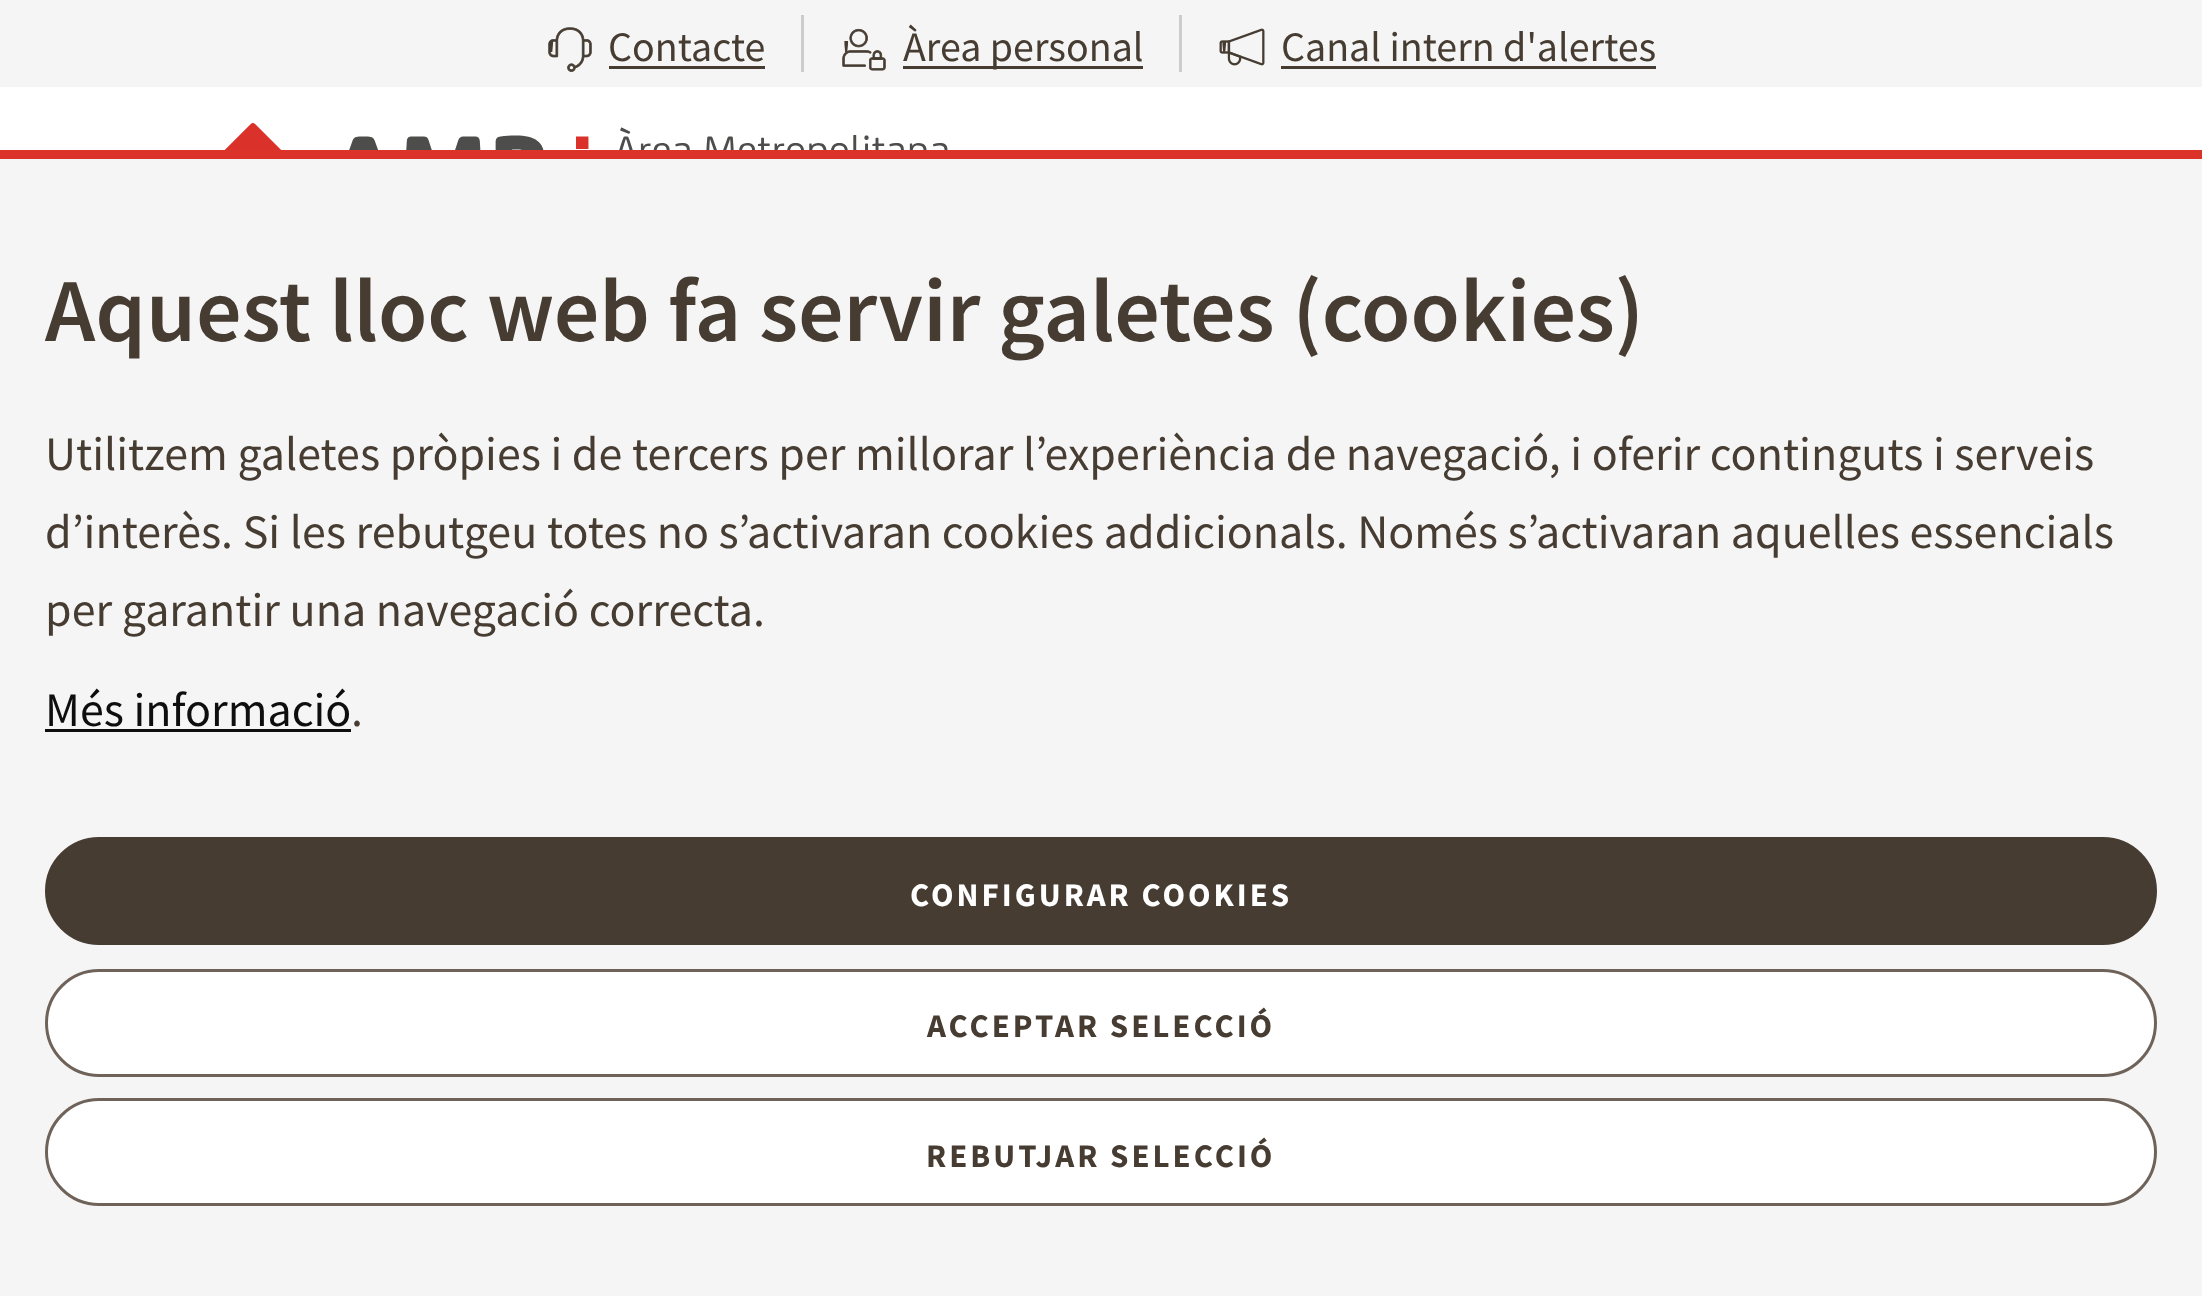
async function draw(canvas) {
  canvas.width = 2202
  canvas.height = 1296
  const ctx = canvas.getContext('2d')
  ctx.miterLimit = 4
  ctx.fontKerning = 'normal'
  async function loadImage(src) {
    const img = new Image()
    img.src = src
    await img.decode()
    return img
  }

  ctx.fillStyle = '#fff'
  ctx.fillRect(0, 0, 2202, 1296)
  ctx.fillStyle = '#f5f5f5'
  ctx.fillRect(0, 0, 2202, 87)
  ctx.fillStyle = '#ccc'
  ctx.fillRect(801, 15, 3, 57)
  ctx.drawImage(await loadImage('image0.png'), 548, 27, 44, 45)
  ctx.font = '42px Source Sans Pro'
  ctx.fillStyle = '#463c32'
  ctx.fillText('\'', 546, 70)
  ctx.fillText('Contacte', 608, 61)
  ctx.fillRect(609, 66, 156, 3)
  ctx.fillStyle = '#ccc'
  ctx.fillRect(1179, 15, 3, 57)
  ctx.drawImage(await loadImage('image1.png'), 842, 28, 44, 43)
  ctx.fillStyle = '#463c32'
  ctx.fillText('\'', 841, 70)
  ctx.fillRect(903, 66, 240, 3)
  ctx.fillText('Àrea personal', 903, 61)
  ctx.drawImage(await loadImage('image2.png'), 1219, 28, 46, 38)
  ctx.fillText('\'', 1219, 70)
  ctx.fillText('Canal intern d\'alertes', 1281, 61)
  ctx.fillRect(1281, 66, 375, 3)
  ctx.drawImage(await loadImage('image3.png'), 224, 123, 724, 27)
  ctx.fillStyle = '#f5f5f5'
  ctx.fillRect(0, 159, 2202, 1137)
  ctx.fillStyle = '#db322a'
  ctx.fillRect(0, 150, 2202, 9)
  ctx.font = '600 90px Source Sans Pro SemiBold'
  ctx.fillStyle = '#463c32'
  ctx.fillText('Aquest lloc web fa servir galetes (cookies)', 45, 341)
  ctx.font = '48px Source Sans Pro'
  ctx.fillText('Utilitzem galetes pròpies i de tercers per millorar l’experiència de navegació, i oferir continguts i serveis', 45, 470)
  ctx.fillText('d’interès. Si les rebutgeu totes no s’activaran cookies addicionals. Només s’activaran aquelles essencials', 45, 548)
  ctx.fillText('per garantir una navegació correcta.', 45, 626)
  ctx.fillStyle = '#0e0e0e'
  ctx.fillText('Més informació', 45, 726)
  ctx.fillRect(45, 729, 306, 3)
  ctx.fillStyle = '#463c32'
  ctx.fillText('.', 351, 726)
  ctx.beginPath()
  ctx.roundRect(46.5, 838.5, 2109, 105, 52.5)
  ctx.fill()
  ctx.strokeStyle = '#463c32'
  ctx.lineWidth = 3
  ctx.stroke()
  ctx.letterSpacing = '3px'
  ctx.font = 'bold 33px Source Sans Pro'
  ctx.fillStyle = '#fff'
  ctx.fillText('CONFIGURAR COOKIES', 910, 906)
  ctx.beginPath()
  ctx.roundRect(46.5, 970.5, 2109, 105, 52.5)
  ctx.fill()
  ctx.strokeStyle = '#6e6259'
  ctx.stroke()
  ctx.fillStyle = '#463c32'
  ctx.fillText('ACCEPTAR SELECCIÓ', 927, 1037)
  ctx.fillStyle = '#fff'
  ctx.beginPath()
  ctx.roundRect(46.5, 1099.5, 2109, 105, 52.5)
  ctx.fill()
  ctx.stroke()
  ctx.fillStyle = '#463c32'
  ctx.fillText('REBUTJAR SELECCIÓ', 926, 1167)
}

draw(document.querySelector('canvas'))
